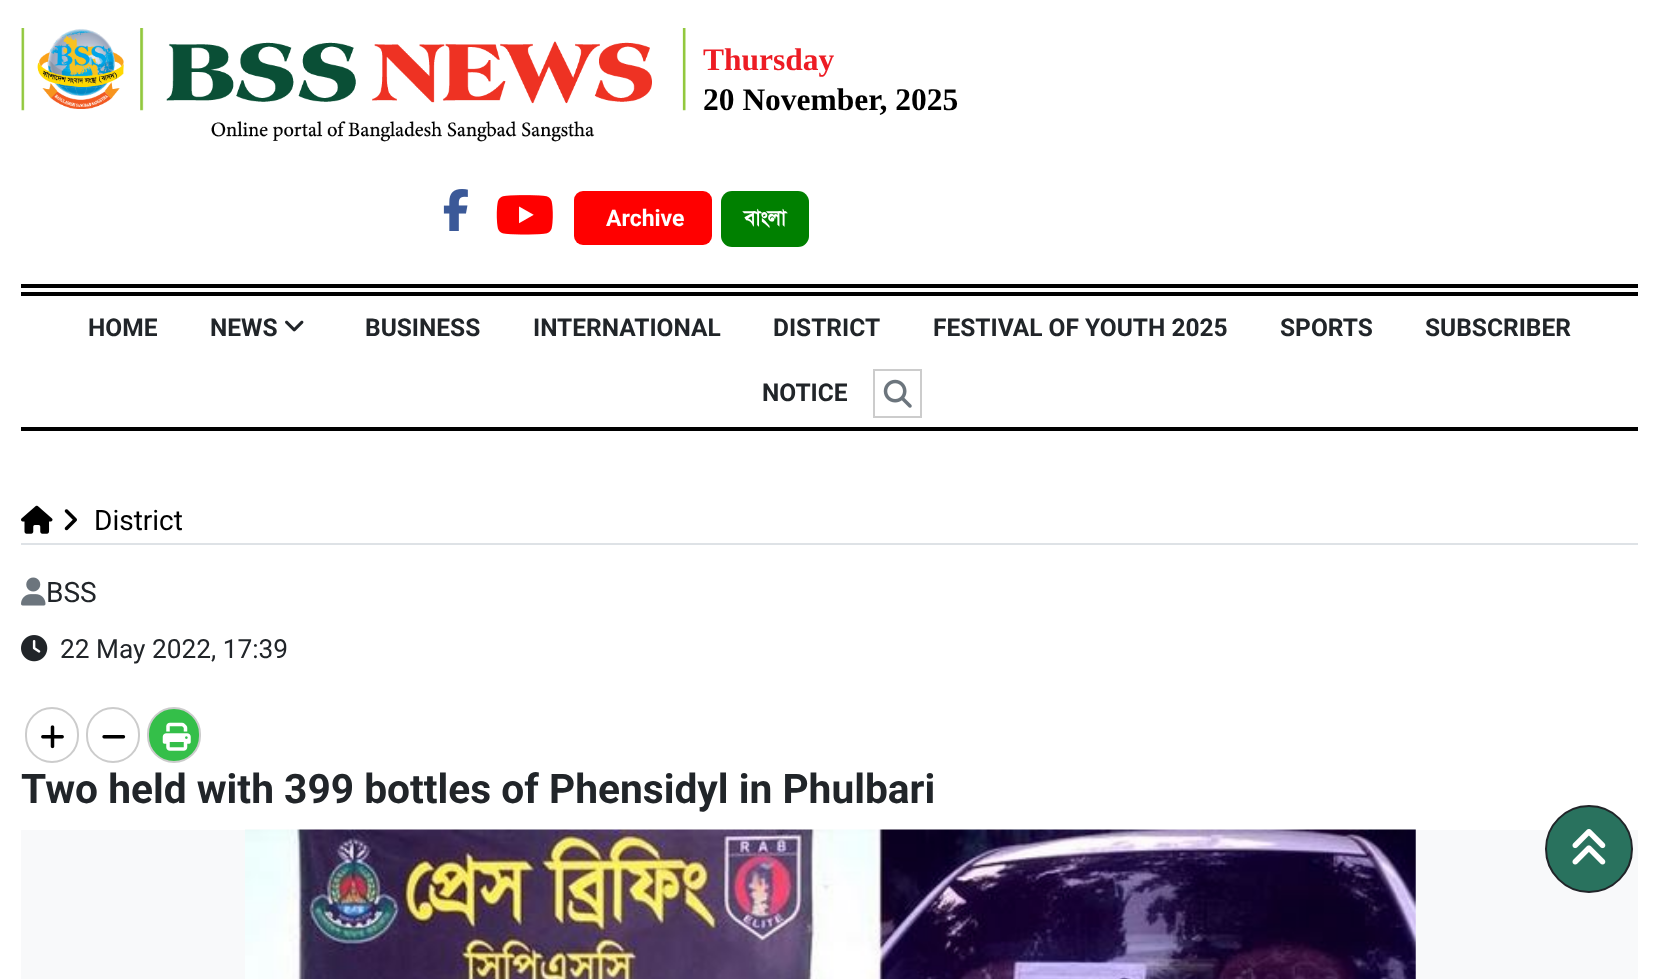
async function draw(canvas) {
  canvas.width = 1658
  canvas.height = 979
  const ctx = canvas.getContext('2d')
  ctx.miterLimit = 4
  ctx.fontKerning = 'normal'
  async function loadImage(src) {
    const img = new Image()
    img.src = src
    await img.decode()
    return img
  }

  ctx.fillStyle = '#fff'
  ctx.fillRect(0, 0, 1658, 979)
  ctx.drawImage(await loadImage('image0.png'), 21, 28, 665, 114)
  ctx.font = 'bold 31.5px Liberation Serif'
  ctx.fillStyle = '#ed1c24'
  ctx.fillText('Thursday', 703, 70)
  ctx.fillStyle = '#000'
  ctx.fillText('20 November, 2025', 703, 110)
  ctx.drawImage(await loadImage('image1.png'), 443, 189, 25, 42)
  ctx.drawImage(await loadImage('image2.png'), 496, 195, 57, 40)
  ctx.fillStyle = '#f00'
  ctx.beginPath()
  ctx.roundRect(574, 191, 138, 54, 9)
  ctx.fill()
  ctx.font = 'bold 23px Roboto'
  ctx.fillStyle = '#fff'
  ctx.fillText('Archive', 606, 226)
  ctx.fillStyle = '#008000'
  ctx.beginPath()
  ctx.roundRect(721, 191, 88, 56, 11)
  ctx.fill()
  ctx.font = 'bold 21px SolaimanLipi'
  ctx.fillStyle = '#fff'
  ctx.fillText('বাংলা', 744, 225)
  ctx.fillStyle = '#000'
  ctx.fillRect(21, 284, 1617, 4)
  ctx.fillRect(21, 427, 1617, 4)
  ctx.fillRect(21, 292, 1617, 4)
  ctx.font = 'bold 24.5px Roboto'
  ctx.fillStyle = '#212529'
  ctx.fillText('HOME', 88, 336)
  ctx.fillText('NEWS', 210, 336)
  ctx.drawImage(await loadImage('image3.png'), 285, 320, 19, 12)
  ctx.fillText('BUSINESS', 365, 336)
  ctx.fillText('INTERNATIONAL', 533, 336)
  ctx.fillText('DISTRICT', 773, 336)
  ctx.fillText('FESTIVAL OF YOUTH 2025', 933, 336)
  ctx.fillText('SPORTS', 1280, 336)
  ctx.fillText('SUBSCRIBER', 1425, 336)
  ctx.fillText('NOTICE', 762, 401)
  ctx.strokeStyle = '#ccc'
  ctx.lineWidth = 2
  ctx.strokeRect(874, 370, 47, 47)
  ctx.drawImage(await loadImage('image4.png'), 883, 379, 29, 29)
  ctx.fillStyle = '#dee2e6'
  ctx.fillRect(21, 543, 1617, 2)
  ctx.drawImage(await loadImage('image5.png'), 21, 505, 32, 29)
  ctx.drawImage(await loadImage('image6.png'), 64, 509, 13, 22)
  ctx.font = '28px Roboto'
  ctx.fillStyle = '#000'
  ctx.fillText('District', 94, 530)
  ctx.drawImage(await loadImage('image7.png'), 21, 577, 25, 29)
  ctx.fillStyle = '#212529'
  ctx.fillText('BSS', 46, 602)
  ctx.drawImage(await loadImage('image8.png'), 21, 635, 27, 27)
  ctx.font = '26.25px Roboto'
  ctx.fillText('22 May 2022, 17:39', 60, 658)
  ctx.beginPath()
  ctx.roundRect(26, 708, 52, 54, 26)
  ctx.stroke()
  ctx.drawImage(await loadImage('image9.png'), 41, 725, 23, 24)
  ctx.beginPath()
  ctx.roundRect(87, 708, 52, 54, 26)
  ctx.stroke()
  ctx.drawImage(await loadImage('image10.png'), 102, 735, 24, 4)
  ctx.fillStyle = '#34bf49'
  ctx.beginPath()
  ctx.roundRect(148, 708, 52, 54, 26)
  ctx.fill()
  ctx.stroke()
  ctx.drawImage(await loadImage('image11.png'), 162, 722, 29, 29)
  ctx.font = 'bold 40.7px Roboto'
  ctx.fillStyle = '#212529'
  ctx.fillText('Two held with 399 bottles of Phensidyl in Phulbari', 21, 803)
  ctx.fillStyle = '#f8f9fa'
  ctx.fillRect(21, 830, 1617, 149)
  ctx.drawImage(await loadImage('image12.png'), 245, 829, 1171, 150)
  ctx.fillStyle = '#29725e'
  ctx.beginPath()
  ctx.arc(1589, 849, 43, 0, 2 * Math.PI)
  ctx.fill()
  ctx.strokeStyle = '#212529'
  ctx.stroke()
  ctx.drawImage(await loadImage('image13.png'), 1572, 829, 34, 36)
}

draw(document.querySelector('canvas'))
